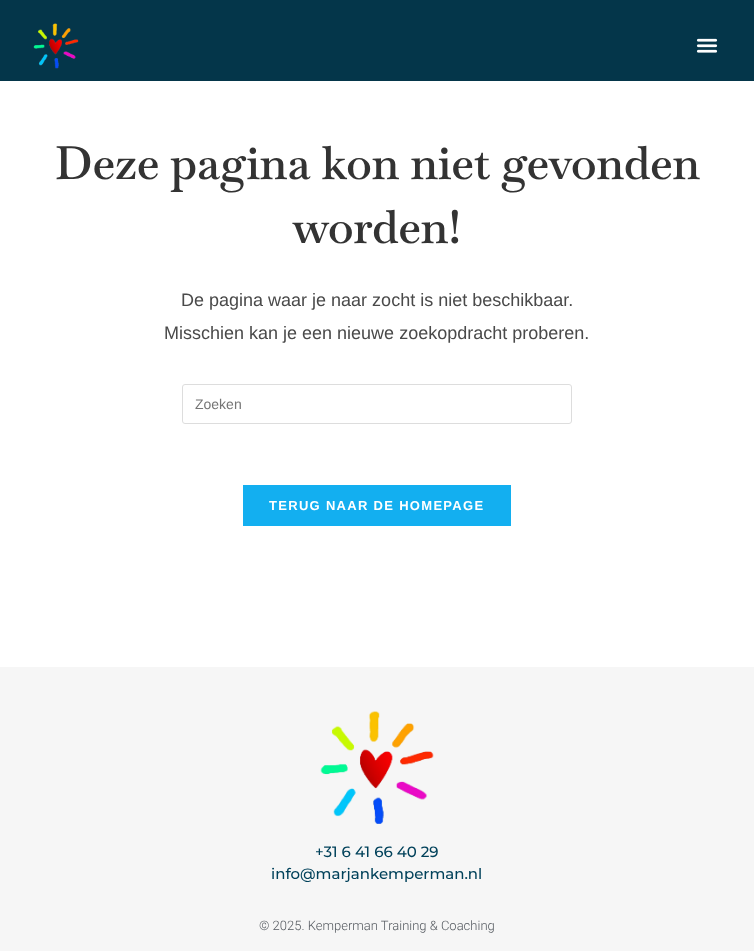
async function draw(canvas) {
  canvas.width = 754
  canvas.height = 951
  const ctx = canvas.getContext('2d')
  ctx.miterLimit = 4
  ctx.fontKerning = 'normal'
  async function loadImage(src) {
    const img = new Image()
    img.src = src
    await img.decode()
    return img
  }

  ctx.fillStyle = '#fff'
  ctx.fillRect(0, 0, 754, 951)
  ctx.fillStyle = '#04364a'
  ctx.fillRect(0, 0, 754, 81)
  ctx.drawImage(await loadImage('image0.png'), 33, 23, 46, 46)
  ctx.drawImage(await loadImage('image1.png'), 696, 38, 22, 15)
  ctx.font = '600 46px Baskervville'
  ctx.fillStyle = '#333'
  ctx.fillText('Deze pagina kon niet gevonden', 55, 179)
  ctx.fillText('worden!', 293, 243)
  ctx.font = '18px Liberation Sans'
  ctx.fillStyle = '#4a4a4a'
  ctx.fillText('De pagina waar je naar zocht is niet beschikbaar.', 181, 306)
  ctx.fillText('Misschien kan je een nieuwe zoekopdracht proberen.', 164, 339)
  ctx.beginPath()
  ctx.roundRect(182.5, 384.5, 389, 39, 2.5)
  ctx.strokeStyle = '#ddd'
  ctx.stroke()
  ctx.font = '14px Liberation Sans'
  ctx.fillStyle = '#757575'
  ctx.fillText('Zoeken', 195, 409)
  ctx.fillStyle = '#13aff0'
  ctx.fillRect(243, 485, 268, 41)
  ctx.letterSpacing = '1.3px'
  ctx.font = 'bold 13px Liberation Sans'
  ctx.fillStyle = '#fff'
  ctx.fillText('TERUG NAAR DE HOMEPAGE', 269, 510)
  ctx.fillStyle = '#f6f6f6'
  ctx.fillRect(0, 667, 754, 284)
  ctx.drawImage(await loadImage('image2.png'), 320, 711, 114, 113)
  ctx.letterSpacing = '0px'
  ctx.font = '500 15px Montserrat'
  ctx.fillStyle = '#00415a'
  ctx.fillText('+31 6 41 66 40 29', 315, 857)
  ctx.fillText('info@marjankemperman.nl', 271, 879)
  ctx.font = '300 13px Roboto'
  ctx.fillStyle = '#54595f'
  ctx.fillText('© 2025. Kemperman Training & Coaching', 259, 930)
}

draw(document.querySelector('canvas'))
